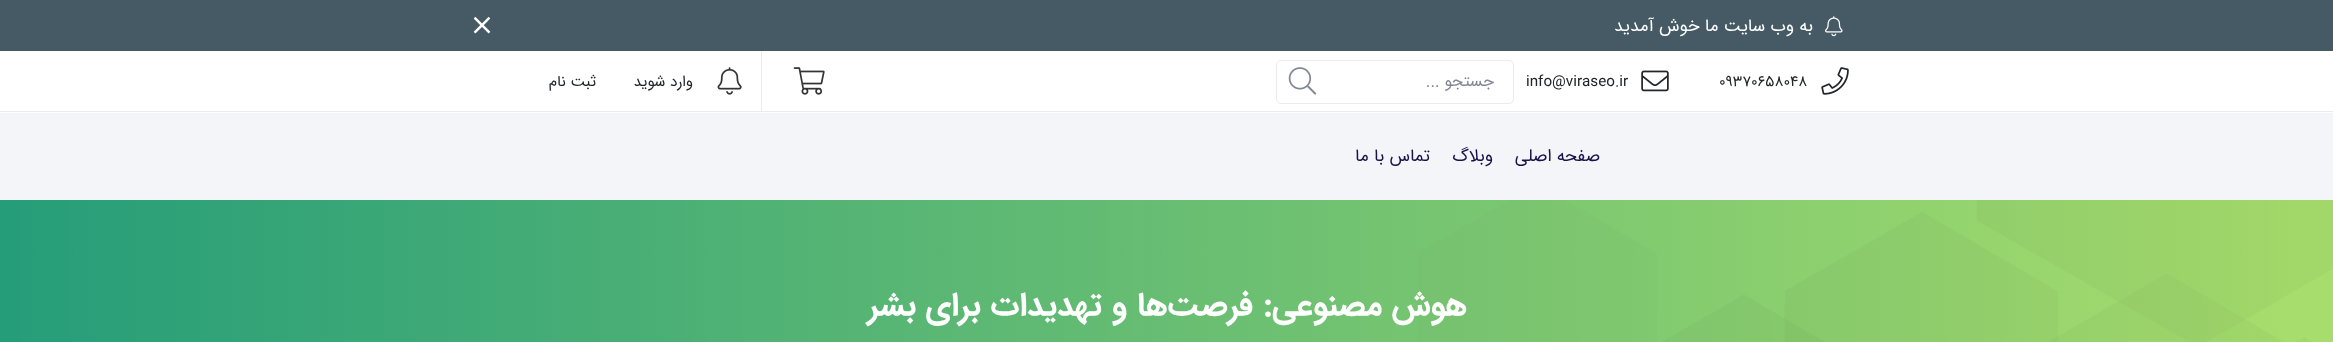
async function draw(canvas) {
  canvas.width = 2333
  canvas.height = 342
  const ctx = canvas.getContext('2d')
  ctx.miterLimit = 4
  ctx.fontKerning = 'normal'
  async function loadImage(src) {
    const img = new Image()
    img.src = src
    await img.decode()
    return img
  }

  ctx.fillStyle = '#fff'
  ctx.fillRect(0, 0, 2333, 342)
  ctx.fillStyle = '#455a64'
  ctx.fillRect(0, 0, 2333, 51)
  ctx.drawImage(await loadImage('image0.png'), 1825, 16, 18, 21)
  ctx.direction = 'rtl'
  ctx.font = '17.5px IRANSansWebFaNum'
  ctx.fillStyle = '#fff'
  ctx.fillText('به وب سایت ما خوش آمدید', 1813, 31)
  ctx.drawImage(await loadImage('image1.png'), 473, 17, 18, 17)
  ctx.fillStyle = '#ececec'
  ctx.fillRect(0, 111, 2333, 1)
  ctx.drawImage(await loadImage('image2.png'), 1821, 67, 28, 28)
  ctx.direction = 'ltr'
  ctx.font = '15.25px IRANSansWebFaNum'
  ctx.fillStyle = '#212529'
  ctx.fillText('09370658048', 1719, 86)
  ctx.drawImage(await loadImage('image3.png'), 1641, 70, 28, 22)
  ctx.fillText('info@viraseo.ir', 1526, 86)
  ctx.beginPath()
  ctx.roundRect(1276.5, 60.5, 237, 43, 4.5)
  ctx.strokeStyle = '#ececec'
  ctx.stroke()
  ctx.direction = 'rtl'
  ctx.font = '16.25px IRANSansWebFaNum'
  ctx.fillStyle = '#818894'
  ctx.fillText('جستجو ...', 1494, 86)
  ctx.drawImage(await loadImage('image4.png'), 1288, 67, 29, 28)
  ctx.drawImage(await loadImage('image5.png'), 793, 67, 32, 28)
  ctx.fillStyle = '#ececec'
  ctx.fillRect(761, 51, 1, 60)
  ctx.drawImage(await loadImage('image6.png'), 717, 67, 25, 28)
  ctx.font = '15.25px IRANSansWebFaNum'
  ctx.fillStyle = '#212529'
  ctx.fillText('وارد شوید', 693, 86)
  ctx.fillText('ثبت نام', 596, 86)
  ctx.fillStyle = '#f4f5f9'
  ctx.fillRect(0, 113, 2333, 87)
  ctx.font = '17.5px IRANSansWebFaNum'
  ctx.fillStyle = '#171348'
  ctx.fillText('صفحه اصلی', 1600, 161)
  ctx.fillText('وبلاگ', 1493, 161)
  ctx.fillText('تماس با ما', 1430, 161)
  ctx.drawImage(await loadImage('image7.png'), 0, 200, 2333, 142)
  ctx.font = 'bold 32.8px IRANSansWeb'
  ctx.fillStyle = '#fff'
  ctx.fillText('هوش مصنوعی: فرصت‌ها و تهدیدات برای بشر', 1467, 315)
}

draw(document.querySelector('canvas'))
